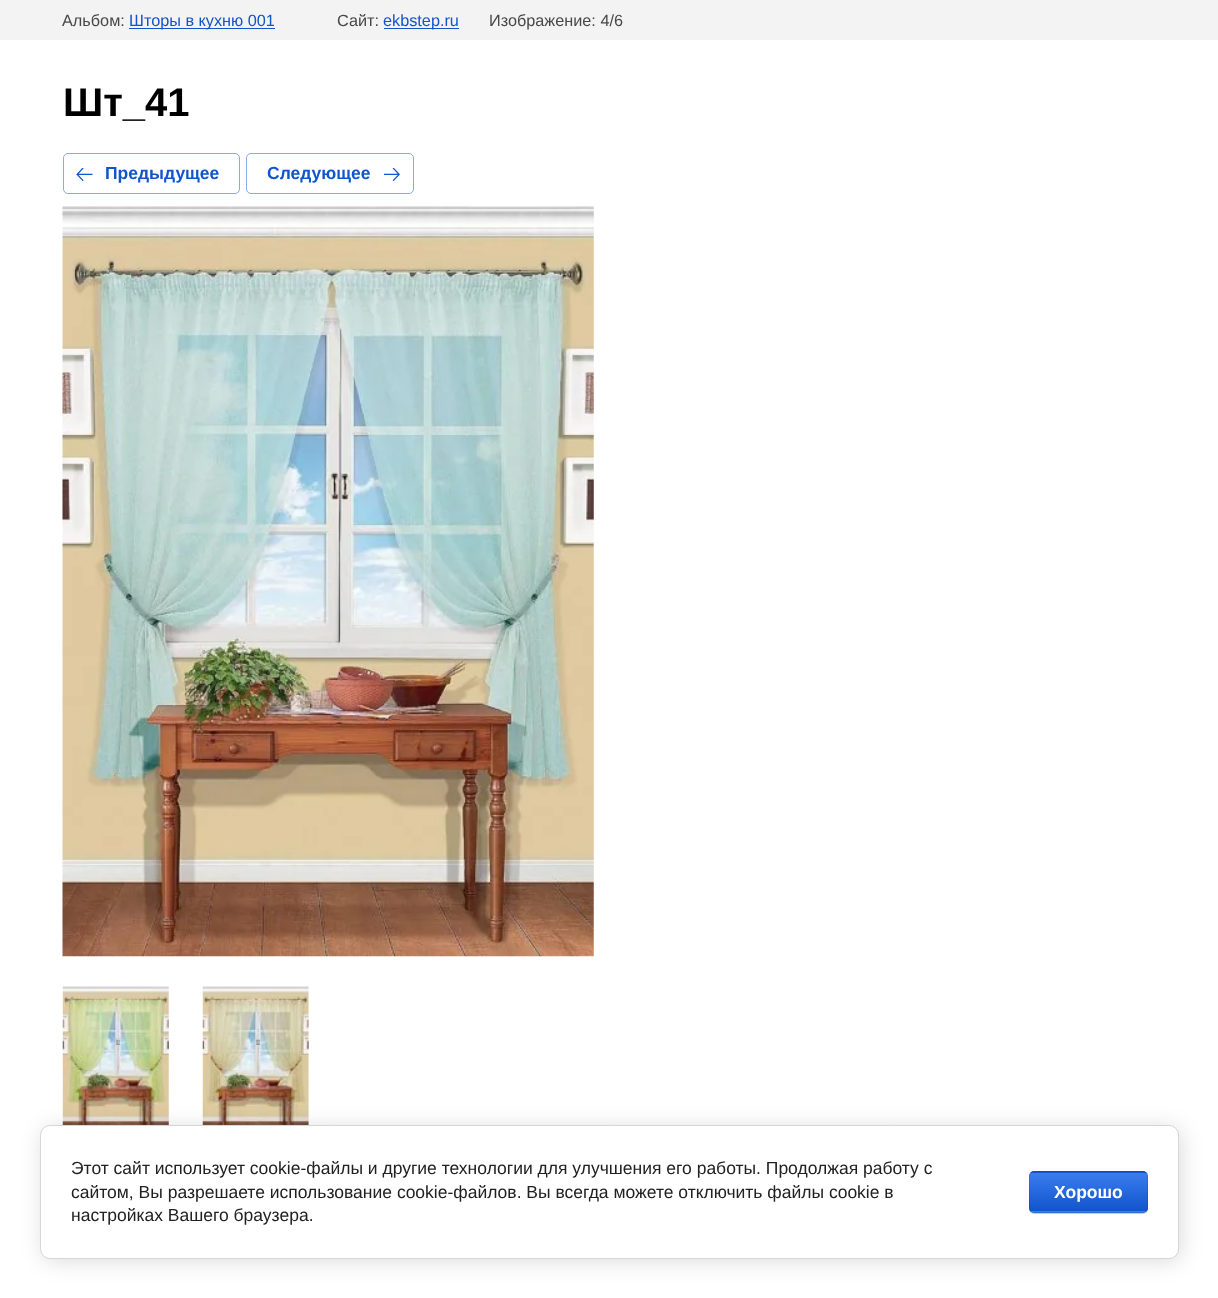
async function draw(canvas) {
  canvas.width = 1218
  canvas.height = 1298
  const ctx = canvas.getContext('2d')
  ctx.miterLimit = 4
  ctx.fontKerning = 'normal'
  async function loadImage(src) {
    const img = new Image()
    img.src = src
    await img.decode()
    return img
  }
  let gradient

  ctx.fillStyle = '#fff'
  ctx.fillRect(0, 0, 1218, 1298)
  ctx.fillStyle = '#f3f3f3'
  ctx.fillRect(0, 0, 1218, 40)
  ctx.font = '16.25px Liberation Sans'
  ctx.fillStyle = '#484848'
  ctx.fillText('Альбом:', 62, 26)
  ctx.fillStyle = '#15c'
  ctx.fillRect(129, 28, 146, 1)
  ctx.fillText('Шторы в кухню 001', 129, 26)
  ctx.fillStyle = '#484848'
  ctx.fillText('Сайт:', 337, 26)
  ctx.fillStyle = '#15c'
  ctx.fillRect(384, 28, 75, 1)
  ctx.fillText('ekbstep.ru', 383, 26)
  ctx.fillStyle = '#484848'
  ctx.fillText('Изображение: 4/6', 489, 26)
  ctx.font = 'bold 40px Liberation Sans'
  ctx.fillStyle = '#000'
  ctx.fillText('Шт_41', 63, 116)
  ctx.beginPath()
  ctx.roundRect(63.5, 153.5, 176, 40, 4.5)
  ctx.strokeStyle = '#88aae6'
  ctx.stroke()
  ctx.drawImage(await loadImage('image0.png'), 76, 168, 17, 13)
  ctx.font = 'bold 17.5px Liberation Sans'
  ctx.fillStyle = '#15c'
  ctx.fillText('Предыдущее', 105, 179)
  ctx.beginPath()
  ctx.roundRect(246.5, 153.5, 167, 40, 4.5)
  ctx.stroke()
  ctx.fillText('Следующее', 267, 179)
  ctx.drawImage(await loadImage('image1.png'), 384, 168, 16, 13)
  ctx.drawImage(await loadImage('image2.png'), 62, 206, 532, 751)
  ctx.drawImage(await loadImage('image3.png'), 62, 986, 107, 139)
  ctx.drawImage(await loadImage('image4.png'), 202, 986, 107, 139)
  ctx.fillStyle = '#00000024'
  ctx.filter = 'blur(11px)'
  ctx.beginPath()
  ctx.roundRect(43, 1128, 1138, 133, 10)
  ctx.fill()
  ctx.filter = 'none'
  ctx.fillStyle = '#fff'
  ctx.beginPath()
  ctx.roundRect(40.5, 1125.5, 1138, 133, 9.5)
  ctx.fill()
  ctx.strokeStyle = '#d6d6d6'
  ctx.stroke()
  ctx.font = '17.5px Liberation Sans'
  ctx.fillStyle = '#212121'
  ctx.fillText('Этот сайт использует cookie-файлы и другие технологии для улучшения его работы. Продолжая работу с', 71, 1174)
  ctx.fillText('сайтом, Вы разрешаете использование cookie-файлов. Вы всегда можете отключить файлы cookie в', 71, 1198)
  ctx.fillText('настройках Вашего браузера.', 71, 1221)
  ctx.fillStyle = '#00000033'
  ctx.filter = 'blur(0.5px)'
  ctx.beginPath()
  ctx.roundRect(1029, 1173, 119, 41, 5)
  ctx.fill()
  ctx.filter = 'none'
  ctx.save()
  ctx.beginPath()
  ctx.roundRect(1029, 1171, 119, 42, 5)
  ctx.clip()
  gradient = ctx.createLinearGradient(1088, 1134, 1088, 1173)
  gradient.addColorStop(0, '#3b7cef')
  gradient.addColorStop(1, '#15c')
  ctx.fillStyle = gradient
  ctx.fillRect(1029, 1171, 119, 2)
  gradient = ctx.createLinearGradient(1088, 1173, 1088, 1211)
  gradient.addColorStop(0, '#3b7cef')
  gradient.addColorStop(1, '#15c')
  ctx.fillStyle = gradient
  ctx.fillRect(1029, 1173, 119, 38)
  gradient = ctx.createLinearGradient(1088, 1211, 1088, 1250)
  gradient.addColorStop(0, '#3b7cef')
  gradient.addColorStop(1, '#15c')
  ctx.fillStyle = gradient
  ctx.fillRect(1029, 1211, 119, 2)
  ctx.restore()
  ctx.beginPath()
  ctx.roundRect(1029.5, 1171.5, 118, 41, 4.5)
  ctx.strokeStyle = '#0000001a'
  ctx.stroke()
  ctx.font = 'bold 17.5px Liberation Sans'
  ctx.fillStyle = '#fff'
  ctx.fillText('Хорошо', 1054, 1198)
}

draw(document.querySelector('canvas'))
